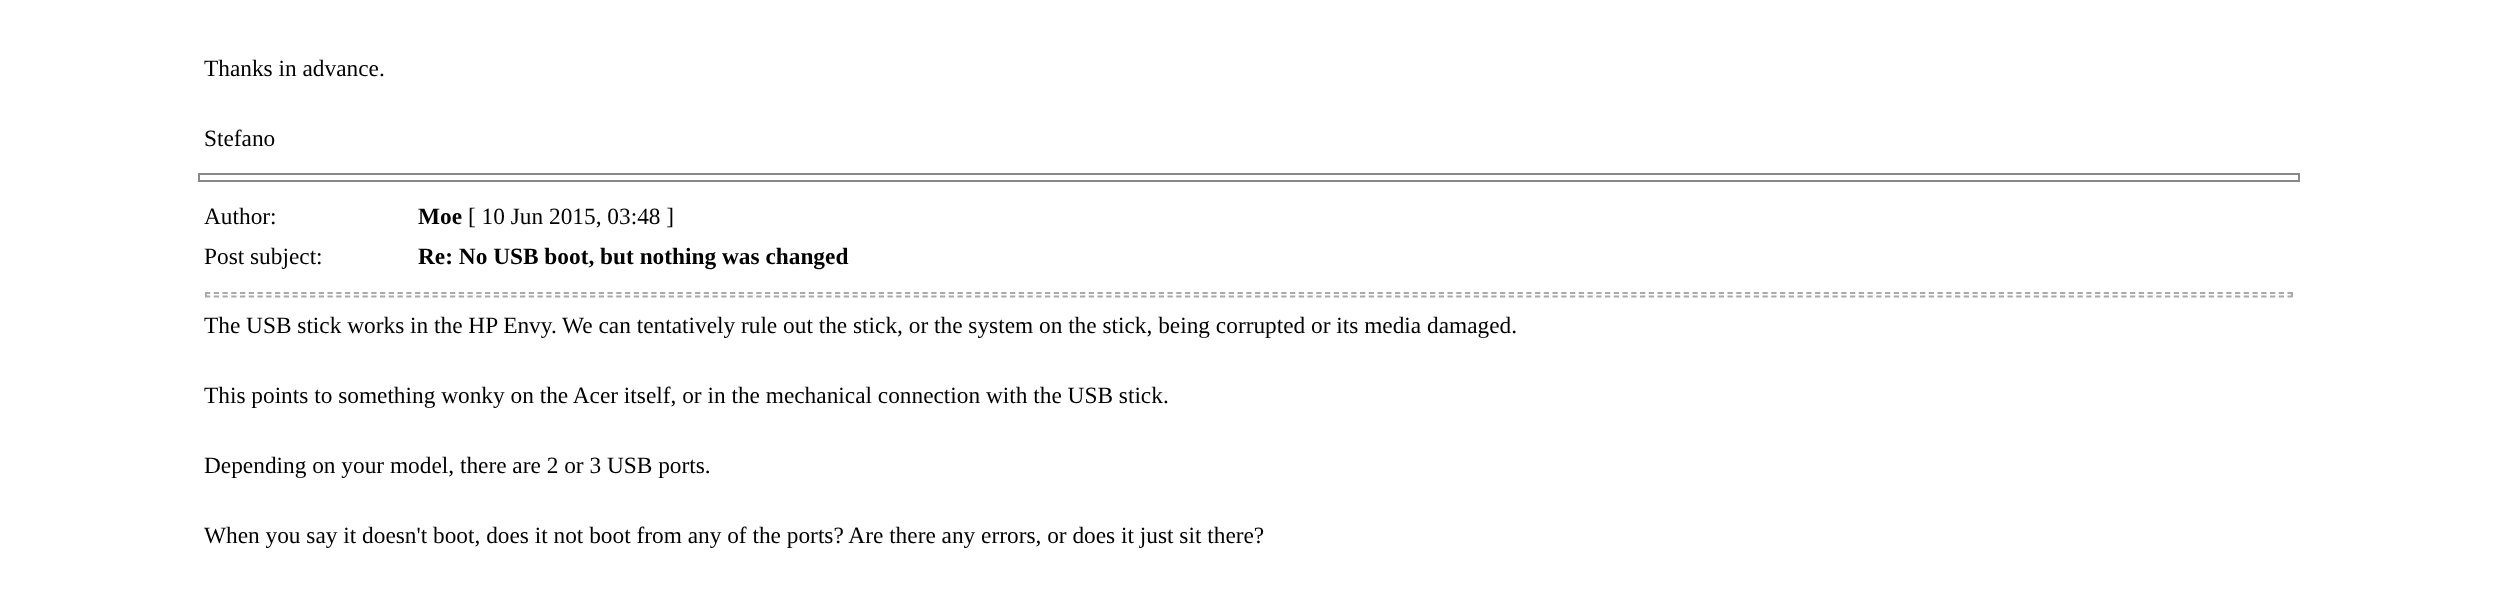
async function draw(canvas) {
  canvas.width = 2496
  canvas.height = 591
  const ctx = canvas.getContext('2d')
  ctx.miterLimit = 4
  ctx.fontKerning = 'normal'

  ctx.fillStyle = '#fff'
  ctx.fillRect(0, 0, 2496, 591)
  ctx.font = '23.33px Liberation Serif'
  ctx.fillStyle = '#000'
  ctx.fillText('Thanks in advance.', 204, 76)
  ctx.fillText('Stefano', 204, 146)
  ctx.strokeStyle = '#888'
  ctx.lineWidth = 2
  ctx.strokeRect(199, 174, 2100, 7)
  ctx.fillText('Author:', 204, 224)
  ctx.font = 'bold 23.33px Liberation Serif'
  ctx.fillText('Moe', 418, 224)
  ctx.font = '23.33px Liberation Serif'
  ctx.fillText('[ 10 Jun 2015, 03:48 ]', 468, 224)
  ctx.fillText('Post subject:', 204, 264)
  ctx.font = 'bold 23.33px Liberation Serif'
  ctx.fillText('Re: No USB boot, but nothing was changed', 418, 264)
  ctx.beginPath()
  ctx.moveTo(205, 293)
  ctx.lineTo(2292.5, 293)
  ctx.strokeStyle = '#aaa'
  ctx.lineWidth = 1.8
  ctx.setLineDash([5.25, 3.5])
  ctx.stroke()
  ctx.fillStyle = '#aaa'
  ctx.fillRect(2291, 292, 2, 5)
  ctx.beginPath()
  ctx.moveTo(205, 296.5)
  ctx.lineTo(2292.5, 296.5)
  ctx.stroke()
  ctx.fillRect(205, 292, 2, 5)
  ctx.font = '23.33px Liberation Serif'
  ctx.fillStyle = '#000'
  ctx.fillText('The USB stick works in the HP Envy. We can tentatively rule out the stick, or the system on the stick, being corrupted or its media damaged.', 204, 333)
  ctx.fillText('This points to something wonky on the Acer itself, or in the mechanical connection with the USB stick.', 204, 403)
  ctx.fillText('Depending on your model, there are 2 or 3 USB ports.', 204, 473)
  ctx.fillText('When you say it doesn\'t boot, does it not boot from any of the ports? Are there any errors, or does it just sit there?', 204, 543)
}

draw(document.querySelector('canvas'))
